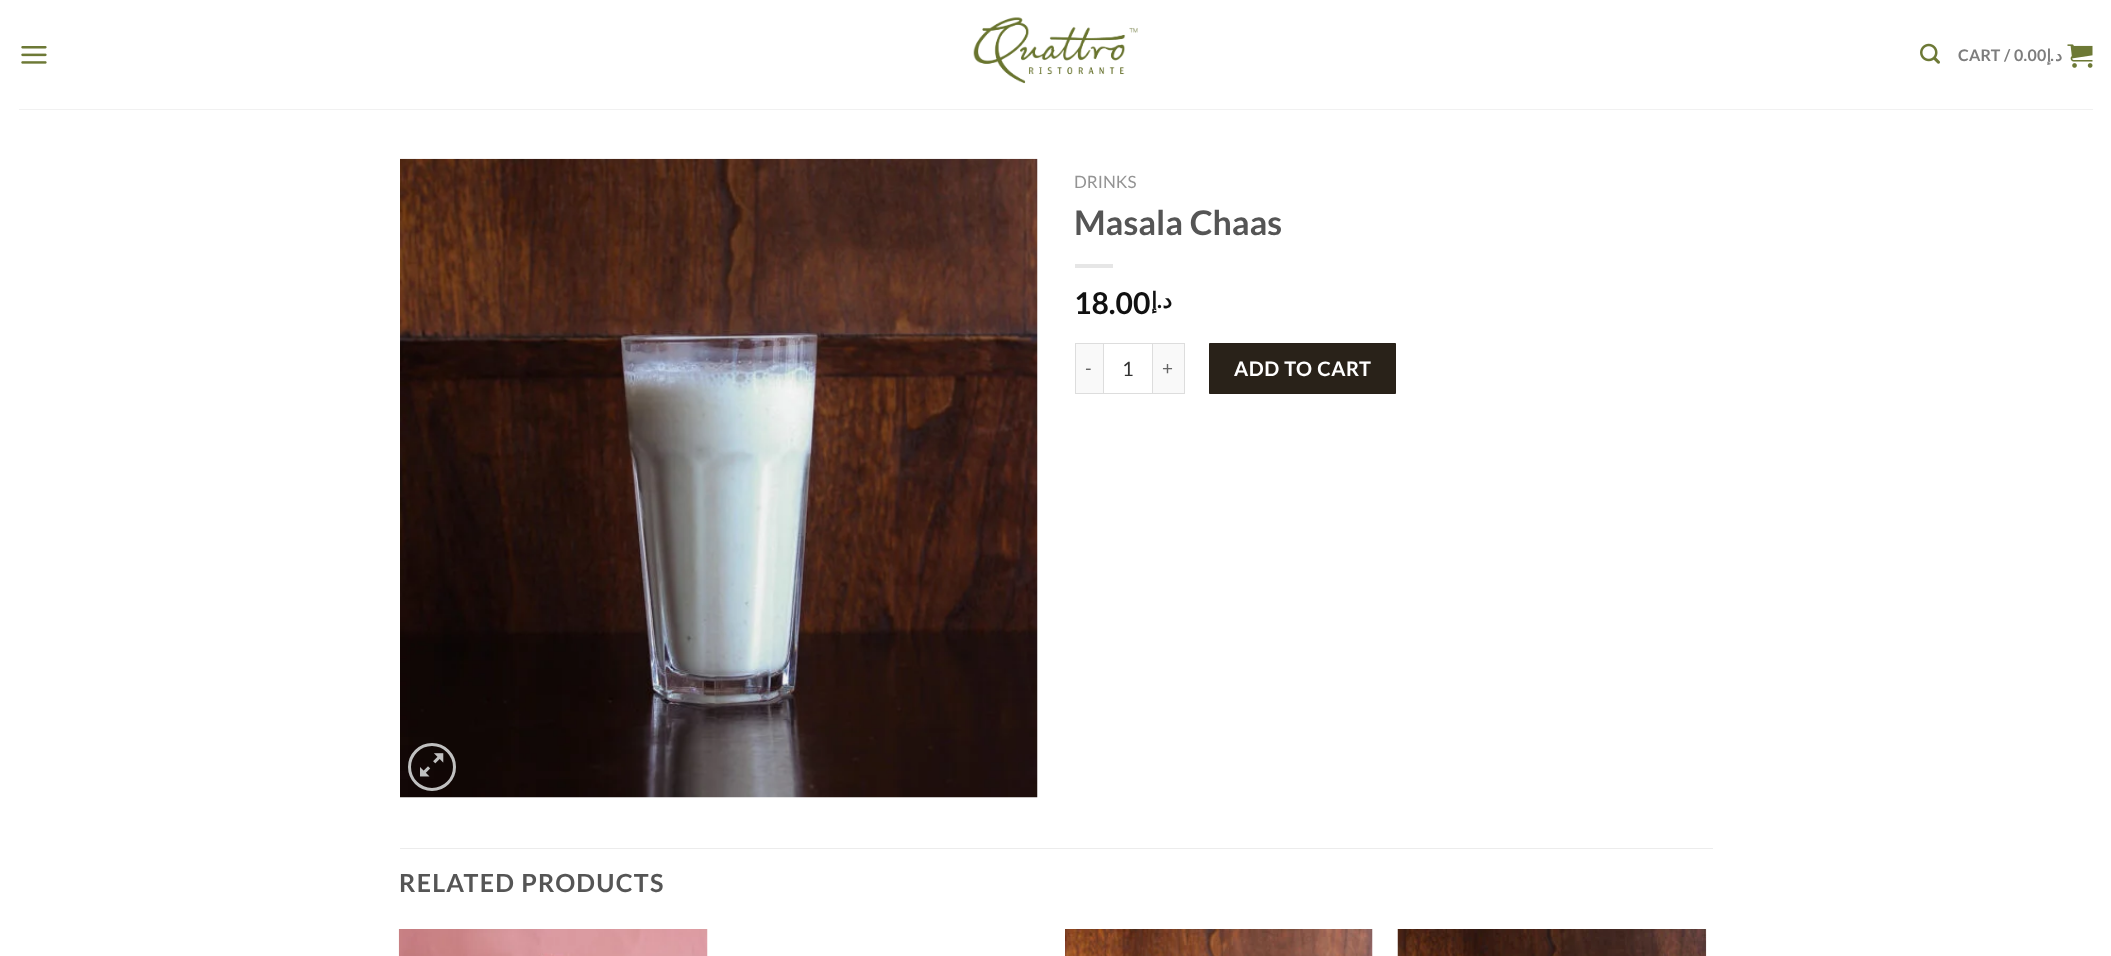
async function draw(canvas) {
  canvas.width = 2111
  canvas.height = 956
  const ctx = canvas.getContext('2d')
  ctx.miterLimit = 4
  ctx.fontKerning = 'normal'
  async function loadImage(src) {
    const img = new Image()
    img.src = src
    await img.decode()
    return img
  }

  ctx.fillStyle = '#fff'
  ctx.fillRect(0, 0, 2111, 956)
  ctx.drawImage(await loadImage('image0.png'), 21, 46, 26, 18)
  ctx.drawImage(await loadImage('image1.png'), 973, 17, 165, 67)
  ctx.drawImage(await loadImage('image2.png'), 1920, 43, 20, 21)
  ctx.letterSpacing = '0.25px'
  ctx.font = 'bold 16px Lato'
  ctx.fillStyle = '#7d7d7d'
  ctx.fillText('CART /', 1958, 61)
  ctx.direction = 'rtl'
  ctx.font = 'bold 16px DejaVu Sans'
  ctx.fillText('إ', 2051, 61)
  ctx.direction = 'ltr'
  ctx.font = 'bold 16px Lato'
  ctx.fillText('0.00', 2014, 61)
  ctx.direction = 'rtl'
  ctx.fillText('.', 2054, 61)
  ctx.font = 'bold 16px DejaVu Sans'
  ctx.fillText('د', 2062, 61)
  ctx.drawImage(await loadImage('image3.png'), 2067, 44, 26, 24)
  ctx.fillStyle = '#f1f1f1'
  ctx.fillRect(19, 109, 2074, 1)
  ctx.drawImage(await loadImage('image4.png'), 400, 158, 638, 640)
  ctx.beginPath()
  ctx.arc(432, 767, 22.5, 0, 2 * Math.PI)
  ctx.strokeStyle = '#c0c0c0'
  ctx.lineWidth = 3
  ctx.stroke()
  ctx.drawImage(await loadImage('image5.png'), 420, 753, 24, 24)
  ctx.letterSpacing = '0px'
  ctx.direction = 'ltr'
  ctx.font = '17px Lato'
  ctx.fillStyle = '#949494'
  ctx.fillText('DRINKS', 1074, 188)
  ctx.font = 'bold 34px Lato'
  ctx.fillStyle = '#555'
  ctx.fillText('Masala Chaas', 1074, 235)
  ctx.fillStyle = '#e6e6e6'
  ctx.fillRect(1075, 264, 38, 4)
  ctx.font = 'bold 30px Lato'
  ctx.fillStyle = '#111'
  ctx.fillText('18.00', 1074, 314)
  ctx.direction = 'rtl'
  ctx.font = 'bold 22px DejaVu Sans'
  ctx.fillText('إ', 1157, 308)
  ctx.font = 'bold 22px Lato'
  ctx.fillText('.', 1162, 308)
  ctx.font = 'bold 22px DejaVu Sans'
  ctx.fillText('د', 1172, 308)
  ctx.fillStyle = '#f9f9f9'
  ctx.fillRect(1076, 344, 27, 49)
  ctx.fillStyle = '#ddd'
  ctx.fillRect(1075, 343, 28, 1)
  ctx.fillRect(1075, 393, 28, 1)
  ctx.fillRect(1075, 343, 1, 51)
  ctx.letterSpacing = '1px'
  ctx.direction = 'ltr'
  ctx.font = '19px Lato'
  ctx.fillStyle = '#666'
  ctx.fillText('-', 1085, 375)
  ctx.strokeStyle = '#ddd'
  ctx.lineWidth = 1
  ctx.strokeRect(1103.5, 343.5, 49, 50)
  ctx.letterSpacing = '0px'
  ctx.font = '20px Lato'
  ctx.fillStyle = '#333'
  ctx.fillText('1', 1122, 376)
  ctx.fillStyle = '#f9f9f9'
  ctx.fillRect(1153, 344, 31, 49)
  ctx.fillStyle = '#ddd'
  ctx.fillRect(1153, 343, 32, 1)
  ctx.fillRect(1184, 343, 1, 51)
  ctx.fillRect(1153, 393, 32, 1)
  ctx.letterSpacing = '1px'
  ctx.font = '19px Lato'
  ctx.fillStyle = '#666'
  ctx.fillText('+', 1162, 375)
  ctx.fillStyle = '#292219'
  ctx.beginPath()
  ctx.rect(1209.5, 343.5, 186, 50)
  ctx.fill()
  ctx.strokeStyle = '#272018'
  ctx.stroke()
  ctx.letterSpacing = '0.6px'
  ctx.font = 'bold 20px Lato'
  ctx.fillStyle = '#fff'
  ctx.fillText('ADD TO CART', 1234, 376)
  ctx.fillStyle = '#ececec'
  ctx.fillRect(400, 848, 1313, 1)
  ctx.letterSpacing = '1.25px'
  ctx.font = 'bold 25px Lato'
  ctx.fillStyle = '#555'
  ctx.fillText('RELATED PRODUCTS', 399, 892)
  ctx.drawImage(await loadImage('image6.png'), 398, 929, 310, 27)
  ctx.drawImage(await loadImage('image7.png'), 1065, 929, 308, 27)
  ctx.drawImage(await loadImage('image8.png'), 1397, 929, 310, 27)
}

draw(document.querySelector('canvas'))
